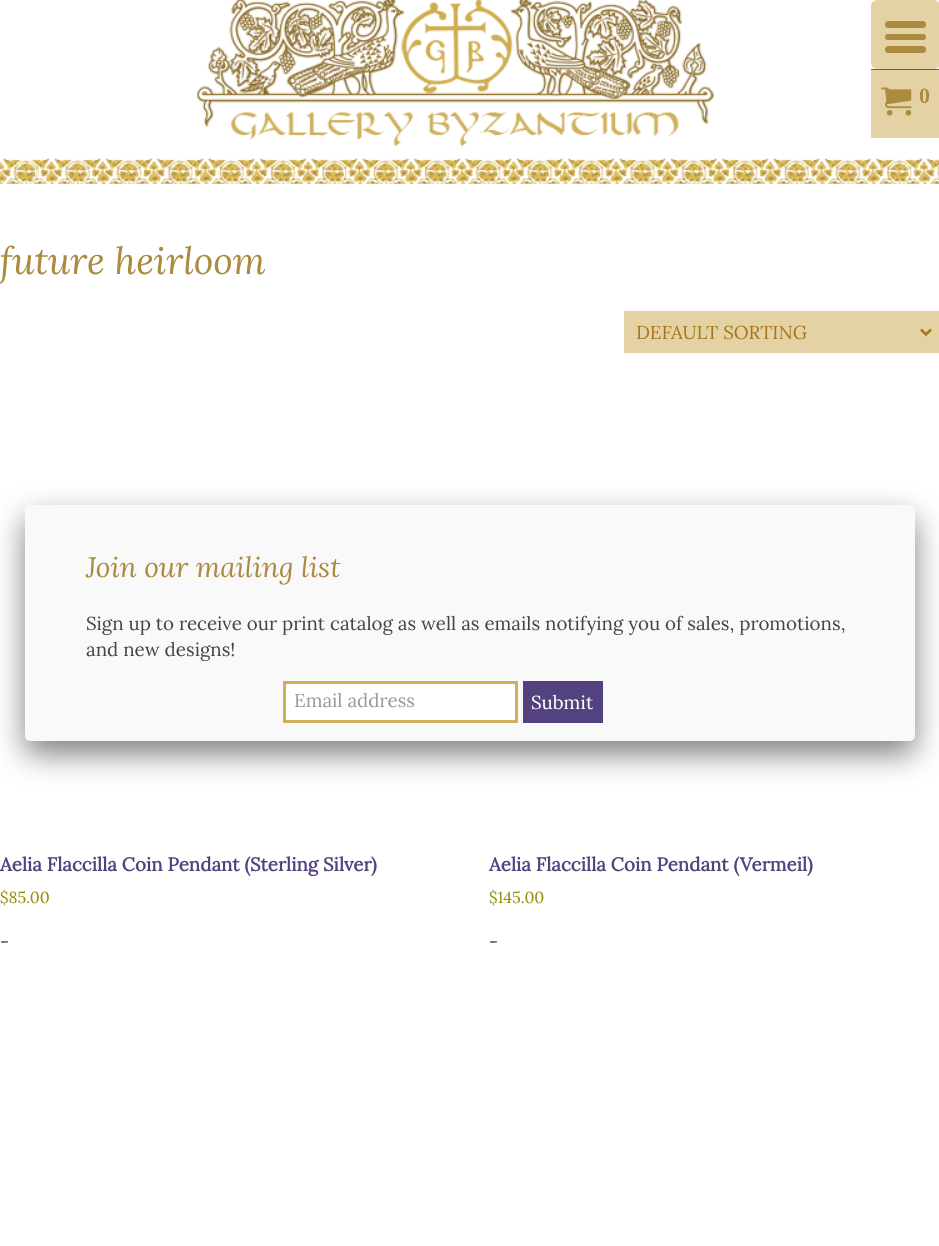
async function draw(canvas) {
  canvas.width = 939
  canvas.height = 1246
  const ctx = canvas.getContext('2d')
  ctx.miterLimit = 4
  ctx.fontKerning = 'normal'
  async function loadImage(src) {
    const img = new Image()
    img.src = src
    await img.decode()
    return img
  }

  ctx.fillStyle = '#fff'
  ctx.fillRect(0, 0, 939, 1246)
  ctx.drawImage(await loadImage('image0.png'), 196, 0, 519, 147)
  ctx.drawImage(await loadImage('image1.png'), 0, 158, 939, 26)
  ctx.fillStyle = '#e5d2a4'
  ctx.beginPath()
  ctx.roundRect(871, 0, 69, 69, 6)
  ctx.fill()
  ctx.fillStyle = '#aa8b40'
  ctx.beginPath()
  ctx.roundRect(885, 34, 41, 6, 3)
  ctx.fill()
  ctx.beginPath()
  ctx.roundRect(885, 21, 41, 7, 3.5)
  ctx.fill()
  ctx.beginPath()
  ctx.roundRect(885, 46, 41, 7, 3.5)
  ctx.fill()
  ctx.fillStyle = '#e5d2a4'
  ctx.fillRect(871, 70, 68, 68)
  ctx.fillStyle = '#655599'
  ctx.fillRect(871, 69, 68, 1)
  ctx.drawImage(await loadImage('image2.png'), 881, 87, 31, 29)
  ctx.font = 'bold 22px Liberation Serif'
  ctx.fillStyle = '#aa8b40'
  ctx.fillText('0', 919, 103)
  ctx.font = 'italic 37.5px Lora'
  ctx.fillText('future heirloom', 0, 274)
  ctx.fillStyle = '#e5d2a4'
  ctx.fillRect(624, 311, 315, 42)
  ctx.beginPath()
  ctx.moveTo(921, 329.5)
  ctx.lineTo(926, 334.5)
  ctx.lineTo(931, 329.5)
  ctx.strokeStyle = '#a5771a'
  ctx.lineWidth = 2.5
  ctx.stroke()
  ctx.font = '18.75px Lora'
  ctx.fillStyle = '#a5771a'
  ctx.fillText('DEFAULT SORTING', 636, 339)
  ctx.font = 'bold 18.75px Lora'
  ctx.fillStyle = '#544280'
  ctx.fillText('Aelia Flaccilla Coin Pendant (Sterling Silver)', 0, 871)
  ctx.font = '16px Lora'
  ctx.fillStyle = '#958e09'
  ctx.fillText('$85.00', 0, 903)
  ctx.font = '18.75px Lora'
  ctx.fillStyle = '#444'
  ctx.fillText('-', 0, 948)
  ctx.font = 'bold 18.75px Lora'
  ctx.fillStyle = '#544280'
  ctx.fillText('Aelia Flaccilla Coin Pendant (Vermeil)', 489, 871)
  ctx.font = '16px Lora'
  ctx.fillStyle = '#958e09'
  ctx.fillText('$145.00', 489, 903)
  ctx.font = '18.75px Lora'
  ctx.fillStyle = '#444'
  ctx.fillText('-', 489, 948)
  ctx.fillStyle = '#00000080'
  ctx.filter = 'blur(15.5px)'
  ctx.beginPath()
  ctx.roundRect(25, 518, 890, 236, 5)
  ctx.fill()
  ctx.filter = 'none'
  ctx.fillStyle = '#f9f9f9'
  ctx.beginPath()
  ctx.roundRect(25, 505, 890, 236, 5)
  ctx.fill()
  ctx.font = 'italic 28.1px Lora'
  ctx.fillStyle = '#aa8b40'
  ctx.fillText('Join our mailing list', 86, 577)
  ctx.font = '18.75px Lora'
  ctx.fillStyle = '#444'
  ctx.fillText('Sign up to receive our print catalog as well as emails notifying you of sales, promotions,', 86, 630)
  ctx.fillText('and new designs!', 86, 656)
  ctx.fillStyle = '#fff'
  ctx.beginPath()
  ctx.rect(284.5, 682.5, 232, 39)
  ctx.fill()
  ctx.strokeStyle = '#ceb05b'
  ctx.lineWidth = 3
  ctx.stroke()
  ctx.fillStyle = '#999'
  ctx.fillText('Email address', 294, 707)
  ctx.fillStyle = '#544280'
  ctx.fillRect(523, 681, 80, 42)
  ctx.fillStyle = '#fff'
  ctx.fillText('Submit', 531, 709)
}

draw(document.querySelector('canvas'))
